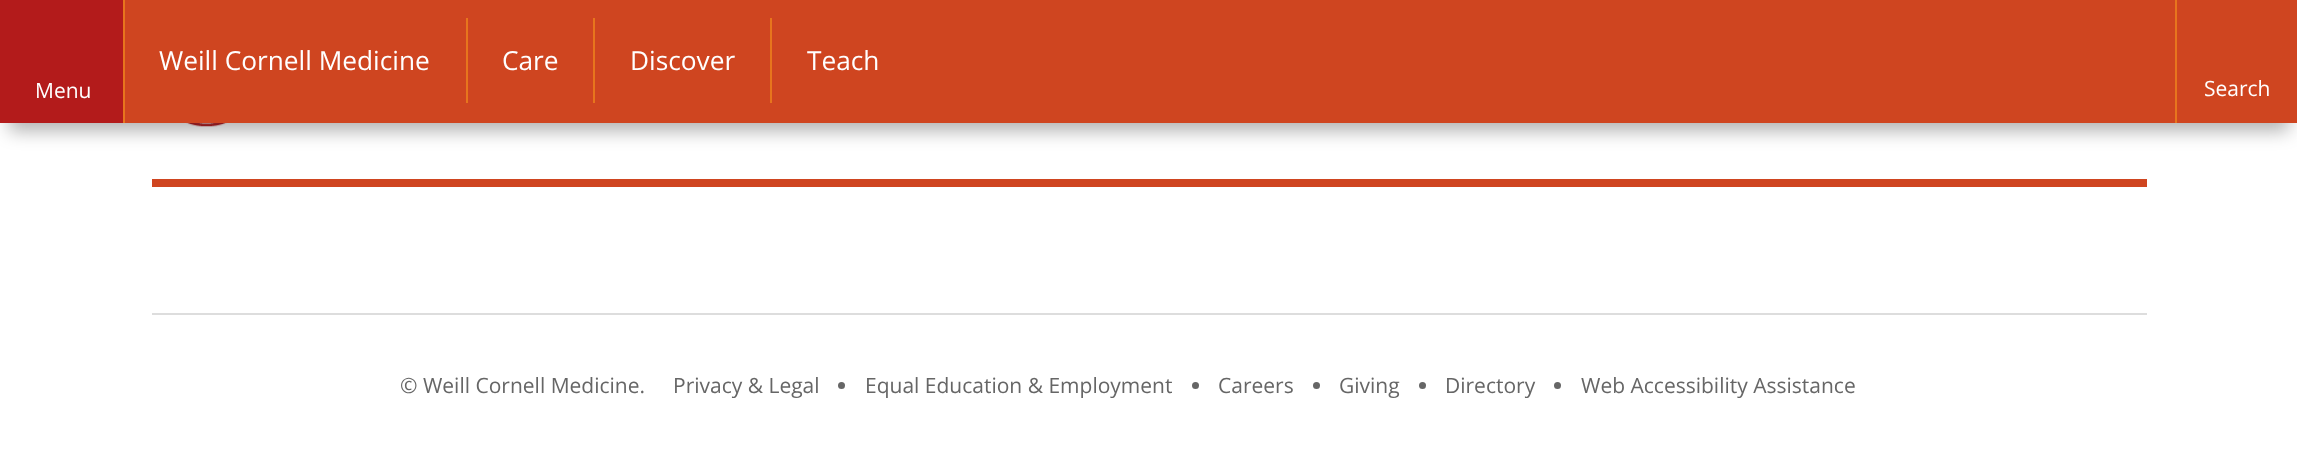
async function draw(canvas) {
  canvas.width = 2297
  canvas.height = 466
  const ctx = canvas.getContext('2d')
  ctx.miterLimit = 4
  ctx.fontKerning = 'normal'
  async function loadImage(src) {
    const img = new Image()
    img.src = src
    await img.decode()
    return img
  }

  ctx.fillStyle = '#fff'
  ctx.fillRect(0, 0, 2297, 466)
  ctx.drawImage(await loadImage('image0.png'), 186, 123, 41, 4)
  ctx.fillStyle = '#0000004d'
  ctx.filter = 'blur(9px)'
  ctx.beginPath()
  ctx.rect(9, 26, 2280, 105)
  ctx.fill()
  ctx.filter = 'none'
  ctx.fillStyle = '#cf4520'
  ctx.fillRect(125, 0, 2172, 123)
  ctx.fillStyle = '#e7751d'
  ctx.fillRect(466, 18, 2, 85)
  ctx.font = '26.25px Open Sans'
  ctx.fillStyle = '#fff'
  ctx.fillText('Weill Cornell Medicine', 159, 70)
  ctx.fillStyle = '#e7751d'
  ctx.fillRect(593, 18, 2, 85)
  ctx.fillStyle = '#fff'
  ctx.fillText('Care', 502, 70)
  ctx.fillStyle = '#e7751d'
  ctx.fillRect(770, 18, 2, 85)
  ctx.fillStyle = '#fff'
  ctx.fillText('Discover', 630, 70)
  ctx.fillText('Teach', 807, 70)
  ctx.fillStyle = '#b31b1b'
  ctx.fillRect(0, 0, 123, 123)
  ctx.fillStyle = '#e7751d'
  ctx.fillRect(123, 0, 2, 123)
  ctx.font = '21px Open Sans'
  ctx.fillStyle = '#fff'
  ctx.fillText('Menu', 35, 98)
  ctx.fillStyle = '#e7751d'
  ctx.fillRect(2175, 0, 2, 123)
  ctx.fillStyle = '#fff'
  ctx.fillText('Search', 2204, 96)
  ctx.fillStyle = '#cf4520'
  ctx.fillRect(152, 179, 1995, 8)
  ctx.fillStyle = '#ddd'
  ctx.fillRect(152, 313, 1995, 2)
  ctx.fillStyle = '#666'
  ctx.fillText('© Weill Cornell Medicine.', 400, 393)
  ctx.fillText('Privacy & Legal', 673, 393)
  ctx.beginPath()
  ctx.arc(841.5, 385.5, 3.5, 0, 2 * Math.PI)
  ctx.fill()
  ctx.fillText('Equal Education & Employment', 865, 393)
  ctx.beginPath()
  ctx.arc(1195.5, 385.5, 3.5, 0, 2 * Math.PI)
  ctx.fill()
  ctx.fillText('Careers', 1218, 393)
  ctx.beginPath()
  ctx.arc(1316.5, 385.5, 3.5, 0, 2 * Math.PI)
  ctx.fill()
  ctx.fillText('Giving', 1339, 393)
  ctx.beginPath()
  ctx.arc(1422.5, 385.5, 3.5, 0, 2 * Math.PI)
  ctx.fill()
  ctx.fillText('Directory', 1445, 393)
  ctx.beginPath()
  ctx.arc(1557.5, 385.5, 3.5, 0, 2 * Math.PI)
  ctx.fill()
  ctx.fillText('Web Accessibility Assistance', 1581, 393)
}

draw(document.querySelector('canvas'))
